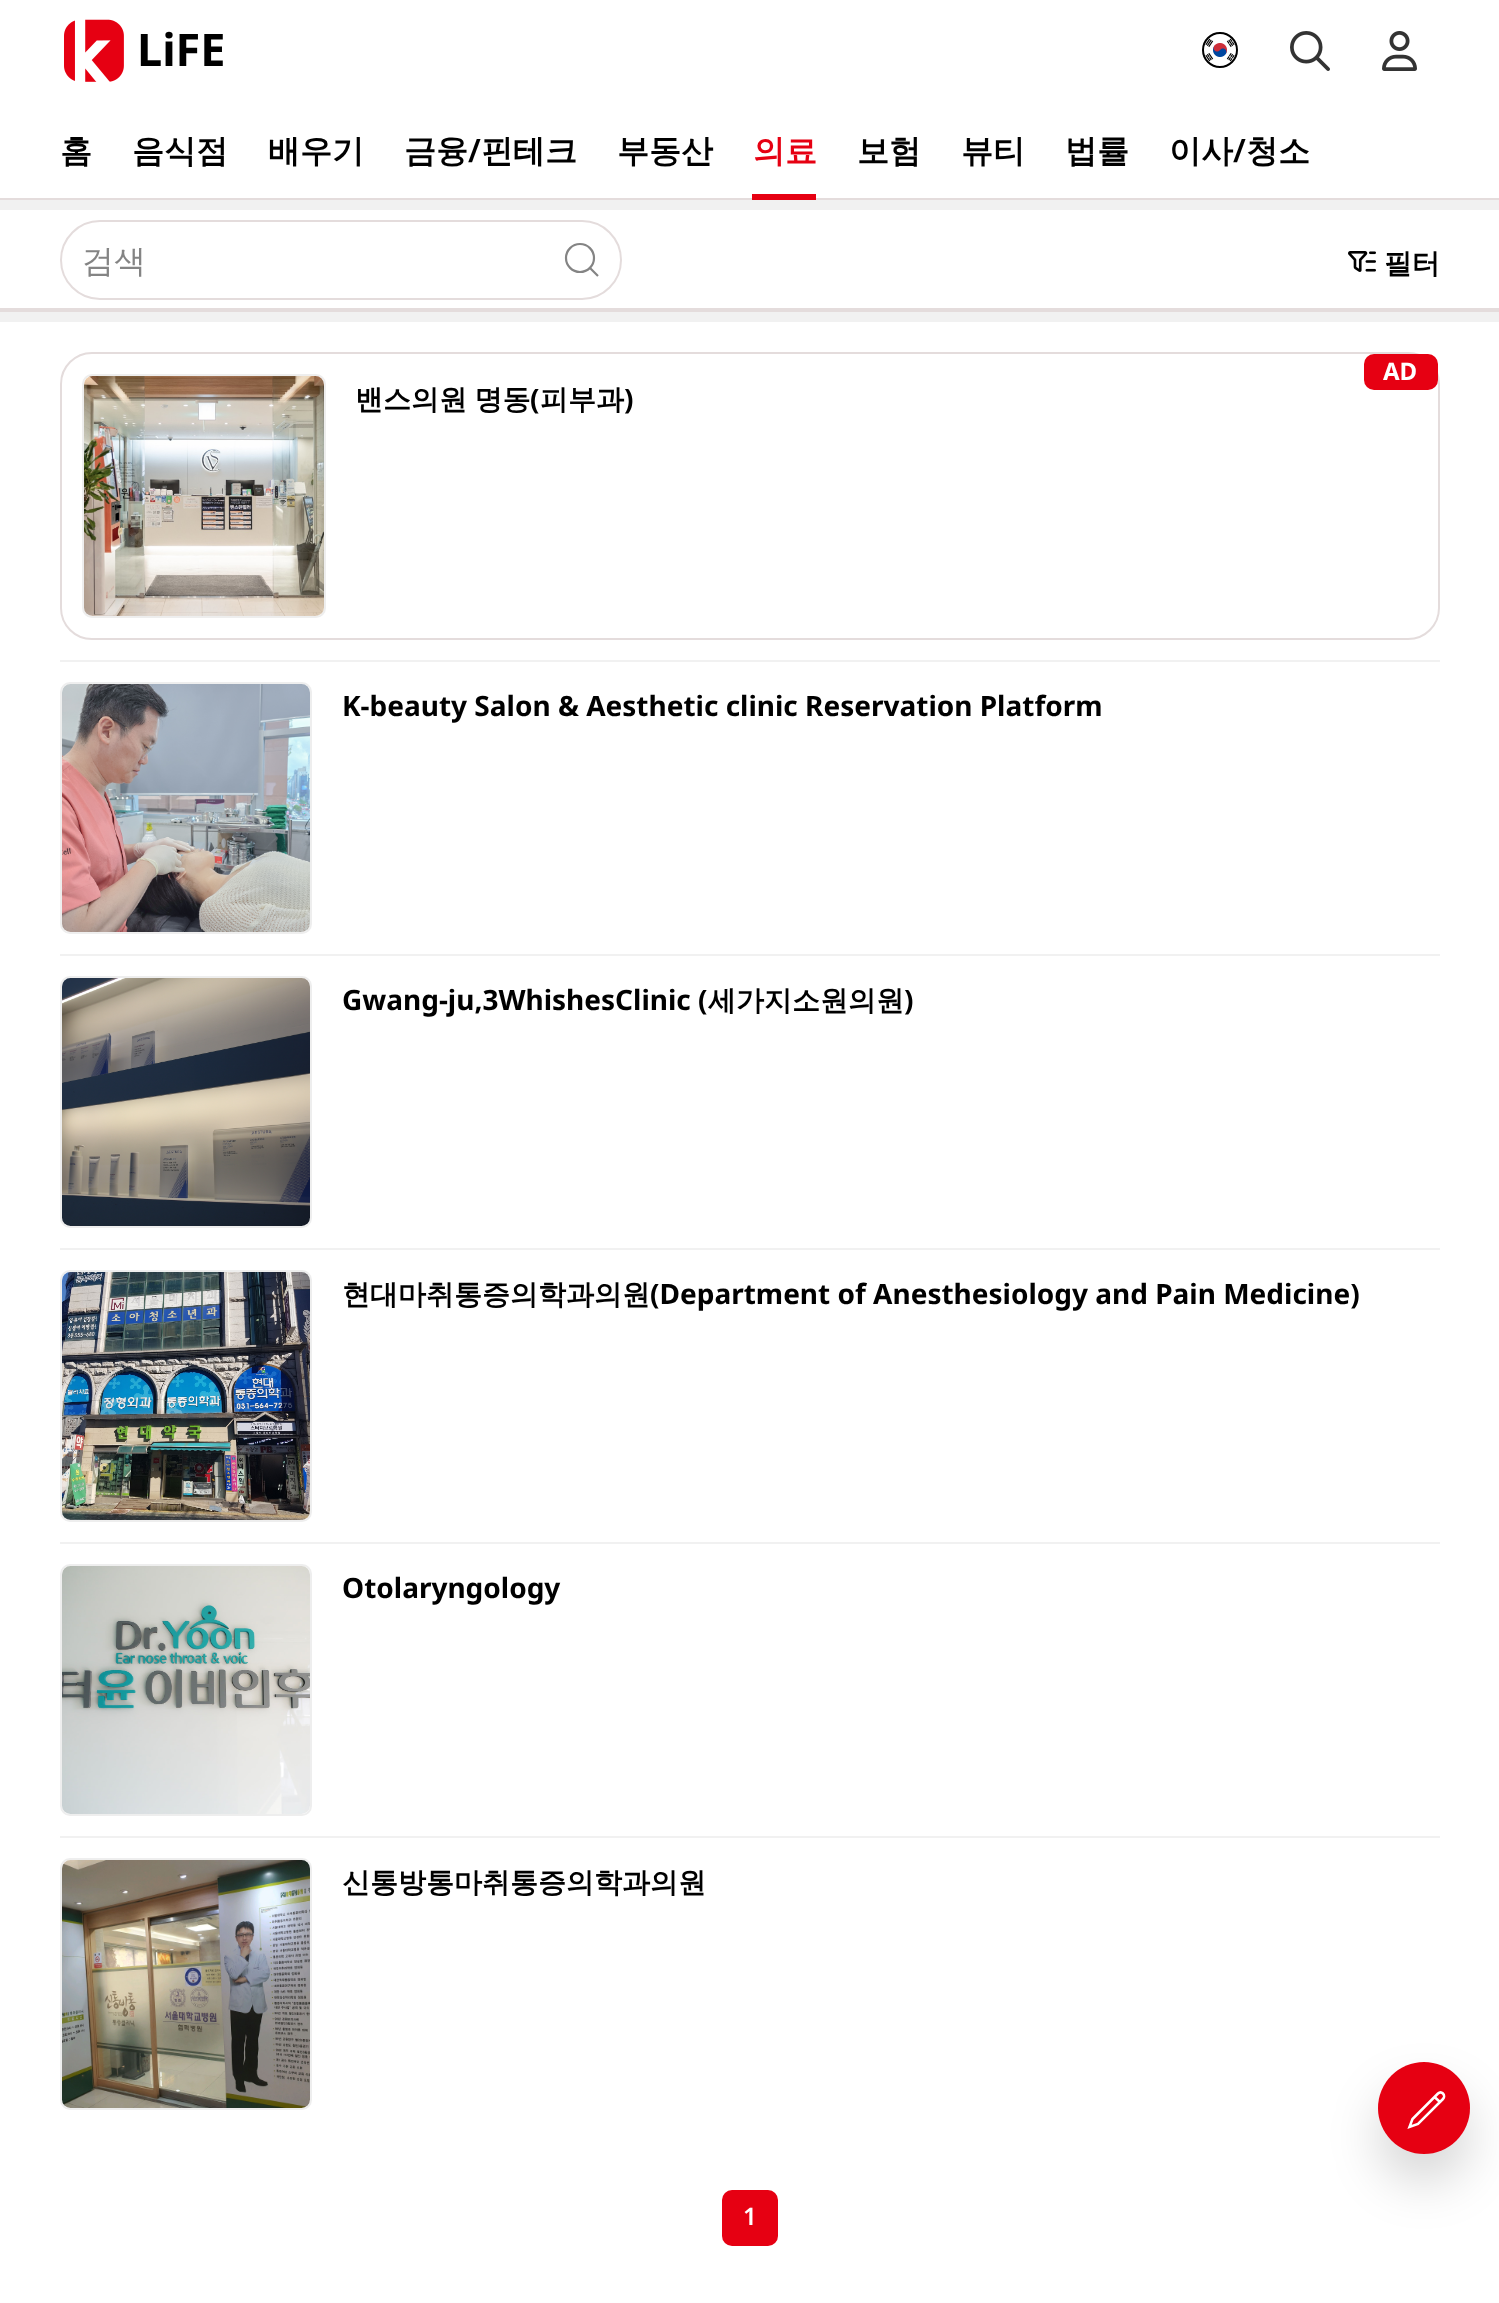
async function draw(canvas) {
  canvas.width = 1499
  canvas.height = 2303
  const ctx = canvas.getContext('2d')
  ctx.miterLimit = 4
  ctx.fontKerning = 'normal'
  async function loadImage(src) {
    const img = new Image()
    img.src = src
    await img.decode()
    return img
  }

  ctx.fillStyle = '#f1f1f1'
  ctx.fillRect(0, 0, 1499, 2303)
  ctx.fillStyle = '#fff'
  ctx.fillRect(0, 0, 1499, 198)
  ctx.fillStyle = '#e4dcdc'
  ctx.fillRect(0, 198, 1499, 2)
  ctx.drawImage(await loadImage('image0.png'), 64, 19, 60, 63)
  ctx.font = 'bold 45px Noto Sans'
  ctx.fillStyle = '#000'
  ctx.fillText('LiFE', 137, 66)
  ctx.drawImage(await loadImage('image1.png'), 1205, 38, 30, 24)
  ctx.beginPath()
  ctx.arc(1220, 50, 17, 0, 2 * Math.PI)
  ctx.strokeStyle = '#000'
  ctx.lineWidth = 2
  ctx.stroke()
  ctx.drawImage(await loadImage('image2.png'), 1290, 31, 40, 40)
  ctx.drawImage(await loadImage('image3.png'), 1382, 31, 35, 40)
  ctx.font = 'bold 32px WenQuanYi Zen Hei'
  ctx.fillText('홈', 60, 162)
  ctx.fillText('음식점', 132, 162)
  ctx.fillText('배우기', 268, 162)
  ctx.fillText('금융', 404, 162)
  ctx.font = '600 32px Noto Sans'
  ctx.fillText('/', 468, 162)
  ctx.font = 'bold 32px WenQuanYi Zen Hei'
  ctx.fillText('핀테크', 481, 162)
  ctx.fillText('부동산', 617, 162)
  ctx.fillStyle = '#e60012'
  ctx.fillText('의료', 753, 162)
  ctx.fillRect(752, 194, 64, 6)
  ctx.fillStyle = '#000'
  ctx.fillText('보험', 857, 162)
  ctx.fillText('뷰티', 961, 162)
  ctx.fillText('법률', 1065, 162)
  ctx.fillText('이사', 1169, 162)
  ctx.font = '600 32px Noto Sans'
  ctx.fillText('/', 1233, 162)
  ctx.font = 'bold 32px WenQuanYi Zen Hei'
  ctx.fillText('청소', 1246, 162)
  ctx.fillStyle = '#fff'
  ctx.fillRect(0, 210, 1499, 98)
  ctx.fillStyle = '#e4dcdc'
  ctx.fillRect(0, 308, 1499, 4)
  ctx.beginPath()
  ctx.roundRect(61, 221, 560, 78, 39)
  ctx.strokeStyle = '#e4dcdc'
  ctx.stroke()
  ctx.font = '500 32px WenQuanYi Zen Hei'
  ctx.fillStyle = '#848484'
  ctx.fillText('검색', 82, 272)
  ctx.beginPath()
  ctx.arc(580, 258, 14, 0, 2 * Math.PI)
  ctx.strokeStyle = '#848484'
  ctx.lineWidth = 2.2
  ctx.stroke()
  ctx.beginPath()
  ctx.moveTo(590, 268)
  ctx.lineTo(598, 276)
  ctx.closePath()
  ctx.stroke()
  ctx.drawImage(await loadImage('image4.png'), 1348, 251, 28, 21)
  ctx.font = 'bold 28px WenQuanYi Zen Hei'
  ctx.fillStyle = '#000'
  ctx.fillText('필터', 1384, 273)
  ctx.fillStyle = '#fff'
  ctx.fillRect(0, 322, 1499, 1981)
  ctx.beginPath()
  ctx.roundRect(61, 353, 1378, 286, 31)
  ctx.strokeStyle = '#e4dcdc'
  ctx.lineWidth = 2
  ctx.stroke()
  ctx.fillStyle = '#e60012'
  ctx.beginPath()
  ctx.roundRect(1364, 354, 74, 36, 10)
  ctx.fill()
  ctx.font = 'bold 24px Noto Sans'
  ctx.fillStyle = '#fff'
  ctx.fillText('AD', 1383, 380)
  ctx.beginPath()
  ctx.roundRect(83, 375, 242, 242, 9)
  ctx.strokeStyle = '#eee'
  ctx.stroke()
  ctx.drawImage(await loadImage('image5.png'), 84, 376, 240, 240)
  ctx.wordSpacing = '-1px'
  ctx.font = 'bold 28px WenQuanYi Zen Hei'
  ctx.fillStyle = '#000'
  ctx.fillText('밴스의원 명동', 355, 409)
  ctx.wordSpacing = '0px'
  ctx.font = 'bold 28px Noto Sans'
  ctx.fillText('(', 530, 409)
  ctx.font = 'bold 28px WenQuanYi Zen Hei'
  ctx.fillText('피부과', 540, 409)
  ctx.font = 'bold 28px Noto Sans'
  ctx.fillText(')', 624, 409)
  ctx.fillStyle = '#f1f1f1'
  ctx.fillRect(60, 660, 1380, 2)
  ctx.beginPath()
  ctx.roundRect(61, 683, 250, 250, 9)
  ctx.stroke()
  ctx.drawImage(await loadImage('image6.png'), 62, 684, 248, 248)
  ctx.fillStyle = '#000'
  ctx.fillText('K-beauty Salon & Aesthetic clinic Reservation Platform', 342, 716)
  ctx.fillStyle = '#f1f1f1'
  ctx.fillRect(60, 954, 1380, 2)
  ctx.beginPath()
  ctx.roundRect(61, 977, 250, 250, 9)
  ctx.stroke()
  ctx.drawImage(await loadImage('image7.png'), 62, 978, 248, 248)
  ctx.fillStyle = '#000'
  ctx.fillText('Gwang-ju,3WhishesClinic (', 342, 1010)
  ctx.font = 'bold 28px WenQuanYi Zen Hei'
  ctx.fillText('세가지소원의원', 708, 1010)
  ctx.font = 'bold 28px Noto Sans'
  ctx.fillText(')', 904, 1010)
  ctx.fillStyle = '#f1f1f1'
  ctx.fillRect(60, 1248, 1380, 2)
  ctx.beginPath()
  ctx.roundRect(61, 1271, 250, 250, 9)
  ctx.stroke()
  ctx.drawImage(await loadImage('image8.png'), 62, 1272, 248, 248)
  ctx.font = 'bold 28px WenQuanYi Zen Hei'
  ctx.fillStyle = '#000'
  ctx.fillText('현대마취통증의학과의원', 342, 1304)
  ctx.font = 'bold 28px Noto Sans'
  ctx.fillText('(Department of Anesthesiology and Pain Medicine)', 650, 1304)
  ctx.fillStyle = '#f1f1f1'
  ctx.fillRect(60, 1542, 1380, 2)
  ctx.beginPath()
  ctx.roundRect(61, 1565, 250, 250, 9)
  ctx.stroke()
  ctx.drawImage(await loadImage('image9.png'), 62, 1566, 248, 248)
  ctx.fillStyle = '#000'
  ctx.fillText('Otolaryngology', 342, 1598)
  ctx.fillStyle = '#f1f1f1'
  ctx.fillRect(60, 1836, 1380, 2)
  ctx.beginPath()
  ctx.roundRect(61, 1859, 250, 250, 9)
  ctx.stroke()
  ctx.drawImage(await loadImage('image10.png'), 62, 1860, 248, 248)
  ctx.font = 'bold 28px WenQuanYi Zen Hei'
  ctx.fillStyle = '#000'
  ctx.fillText('신통방통마취통증의학과의원', 342, 1892)
  ctx.fillStyle = '#e60012'
  ctx.beginPath()
  ctx.roundRect(722, 2190, 56, 56, 10)
  ctx.fill()
  ctx.font = '600 24px Noto Sans'
  ctx.fillStyle = '#fff'
  ctx.fillText('1', 743, 2225)
  ctx.fillStyle = '#00000029'
  ctx.filter = 'blur(25px)'
  ctx.beginPath()
  ctx.roundRect(1378, 2090, 92, 92, 46)
  ctx.fill()
  ctx.filter = 'none'
  ctx.fillStyle = '#e60012'
  ctx.beginPath()
  ctx.arc(1424, 2108, 46, 0, 2 * Math.PI)
  ctx.fill()
  ctx.beginPath()
  ctx.moveTo(1443, 2099)
  ctx.lineTo(1418, 2124)
  ctx.lineTo(1409.5, 2127)
  ctx.lineTo(1412.5, 2119)
  ctx.lineTo(1438, 2093.5)
  ctx.bezierCurveTo(1439.5, 2092, 1441.5, 2092, 1443, 2093.5)
  ctx.bezierCurveTo(1444.5, 2095, 1444.5, 2097.5, 1443, 2099)
  ctx.closePath()
  ctx.moveTo(1440, 2102)
  ctx.lineTo(1434.5, 2097)
  ctx.strokeStyle = '#fff'
  ctx.lineWidth = 2.5
  ctx.stroke()
}

draw(document.querySelector('canvas'))
